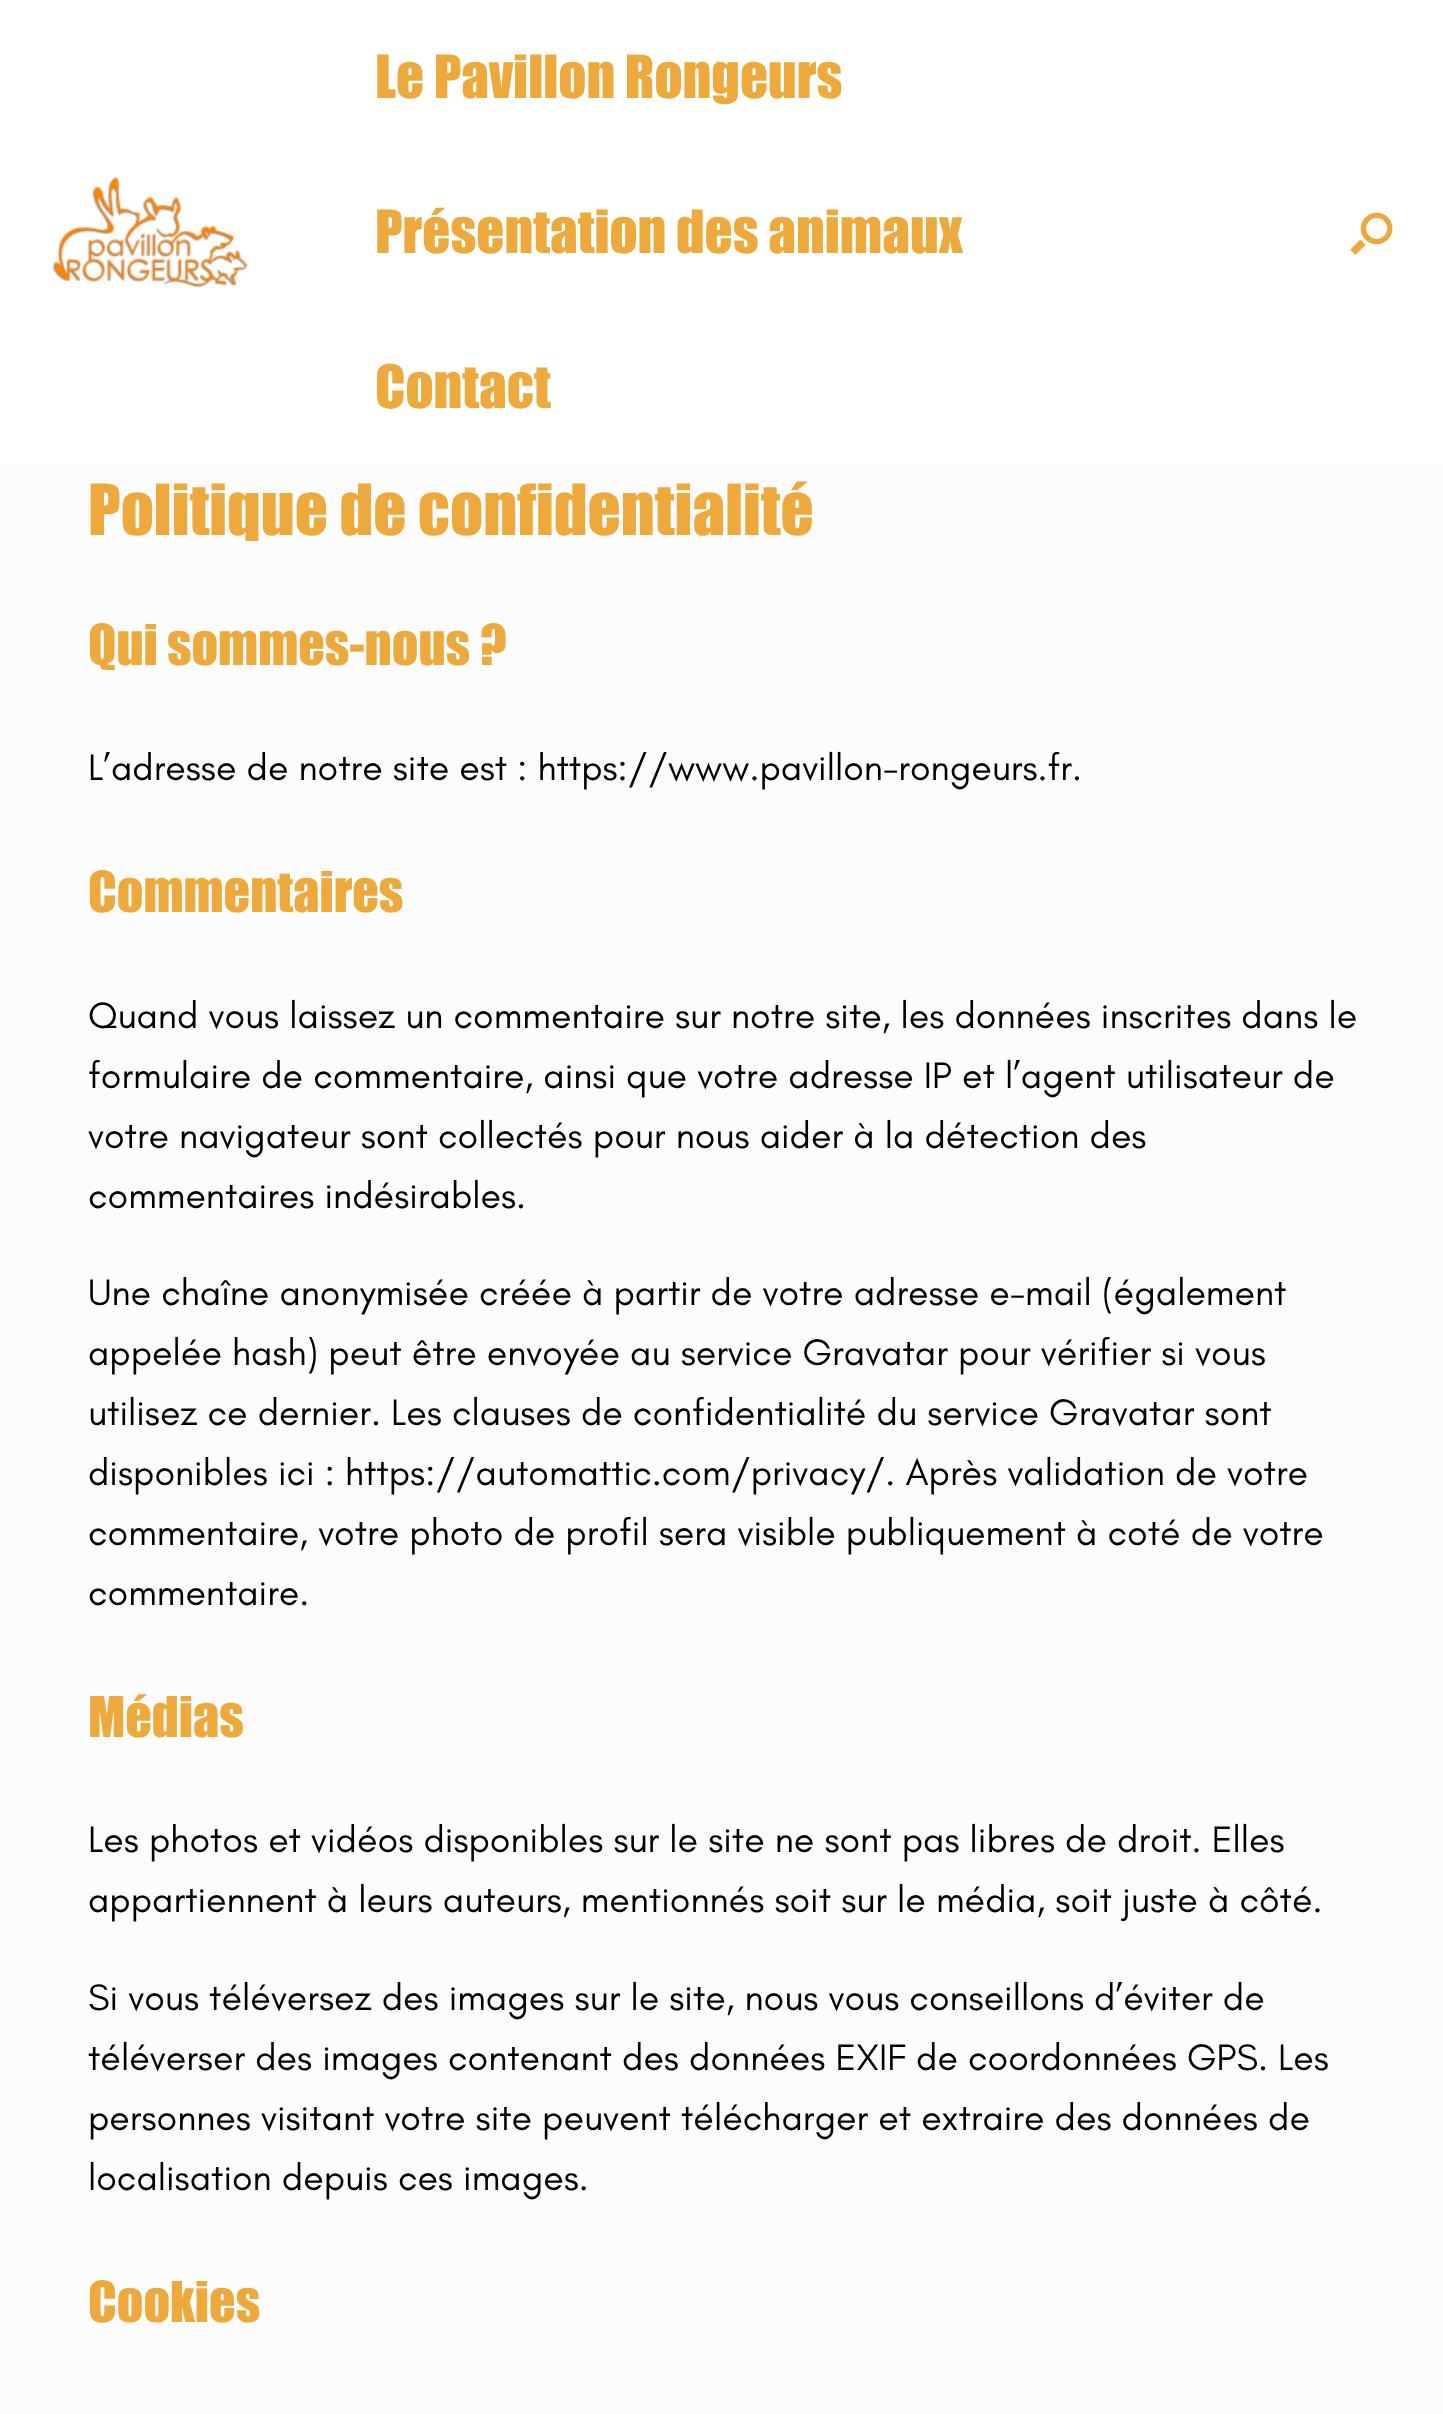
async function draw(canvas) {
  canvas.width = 1443
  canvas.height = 2414
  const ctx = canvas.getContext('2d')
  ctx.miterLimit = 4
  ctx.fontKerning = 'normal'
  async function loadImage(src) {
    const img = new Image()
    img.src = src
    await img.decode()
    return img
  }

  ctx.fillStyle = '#fcfcfc'
  ctx.fillRect(0, 0, 1443, 2414)
  ctx.fillStyle = '#fff'
  ctx.fillRect(0, 0, 1443, 465)
  ctx.drawImage(await loadImage('image0.png'), 50, 175, 200, 113)
  ctx.font = '55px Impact'
  ctx.fillStyle = '#eea93d'
  ctx.fillText('Le Pavillon Rongeurs', 375, 98)
  ctx.fillText('Présentation des animaux', 375, 253)
  ctx.fillText('Contact', 375, 408)
  ctx.drawImage(await loadImage('image1.png'), 1350, 212, 43, 43)
  ctx.font = '65px Impact'
  ctx.fillText('Politique de confidentialité', 88, 535)
  ctx.font = '52px Impact'
  ctx.fillText('Qui sommes-nous ?', 88, 665)
  ctx.font = '37.5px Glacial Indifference'
  ctx.fillStyle = '#000'
  ctx.fillText('L’adresse de notre site est : https://www.pavillon-rongeurs.fr.', 88, 780)
  ctx.font = '52px Impact'
  ctx.fillStyle = '#eea93d'
  ctx.fillText('Commentaires', 88, 912)
  ctx.font = '37.5px Glacial Indifference'
  ctx.fillStyle = '#000'
  ctx.fillText('Quand vous laissez un commentaire sur notre site, les données inscrites dans le', 88, 1028)
  ctx.fillText('formulaire de commentaire, ainsi que votre adresse IP et l’agent utilisateur de', 88, 1088)
  ctx.fillText('votre navigateur sont collectés pour nous aider à la détection des', 88, 1148)
  ctx.fillText('commentaires indésirables.', 88, 1208)
  ctx.fillText('Une chaîne anonymisée créée à partir de votre adresse e-mail (également', 88, 1305)
  ctx.fillText('appelée hash) peut être envoyée au service Gravatar pour vérifier si vous', 88, 1365)
  ctx.fillText('utilisez ce dernier. Les clauses de confidentialité du service Gravatar sont', 88, 1425)
  ctx.fillText('disponibles ici : https://automattic.com/privacy/. Après validation de votre', 88, 1485)
  ctx.fillText('commentaire, votre photo de profil sera visible publiquement à coté de votre', 88, 1545)
  ctx.fillText('commentaire.', 88, 1605)
  ctx.font = '52px Impact'
  ctx.fillStyle = '#eea93d'
  ctx.fillText('Médias', 88, 1737)
  ctx.font = '37.5px Glacial Indifference'
  ctx.fillStyle = '#000'
  ctx.fillText('Les photos et vidéos disponibles sur le site ne sont pas libres de droit. Elles', 88, 1852)
  ctx.fillText('appartiennent à leurs auteurs, mentionnés soit sur le média, soit juste à côté.', 88, 1912)
  ctx.fillText('Si vous téléversez des images sur le site, nous vous conseillons d’éviter de', 88, 2010)
  ctx.fillText('téléverser des images contenant des données EXIF de coordonnées GPS. Les', 88, 2070)
  ctx.fillText('personnes visitant votre site peuvent télécharger et extraire des données de', 88, 2130)
  ctx.fillText('localisation depuis ces images.', 88, 2190)
  ctx.font = '52px Impact'
  ctx.fillStyle = '#eea93d'
  ctx.fillText('Cookies', 88, 2322)
}

draw(document.querySelector('canvas'))
